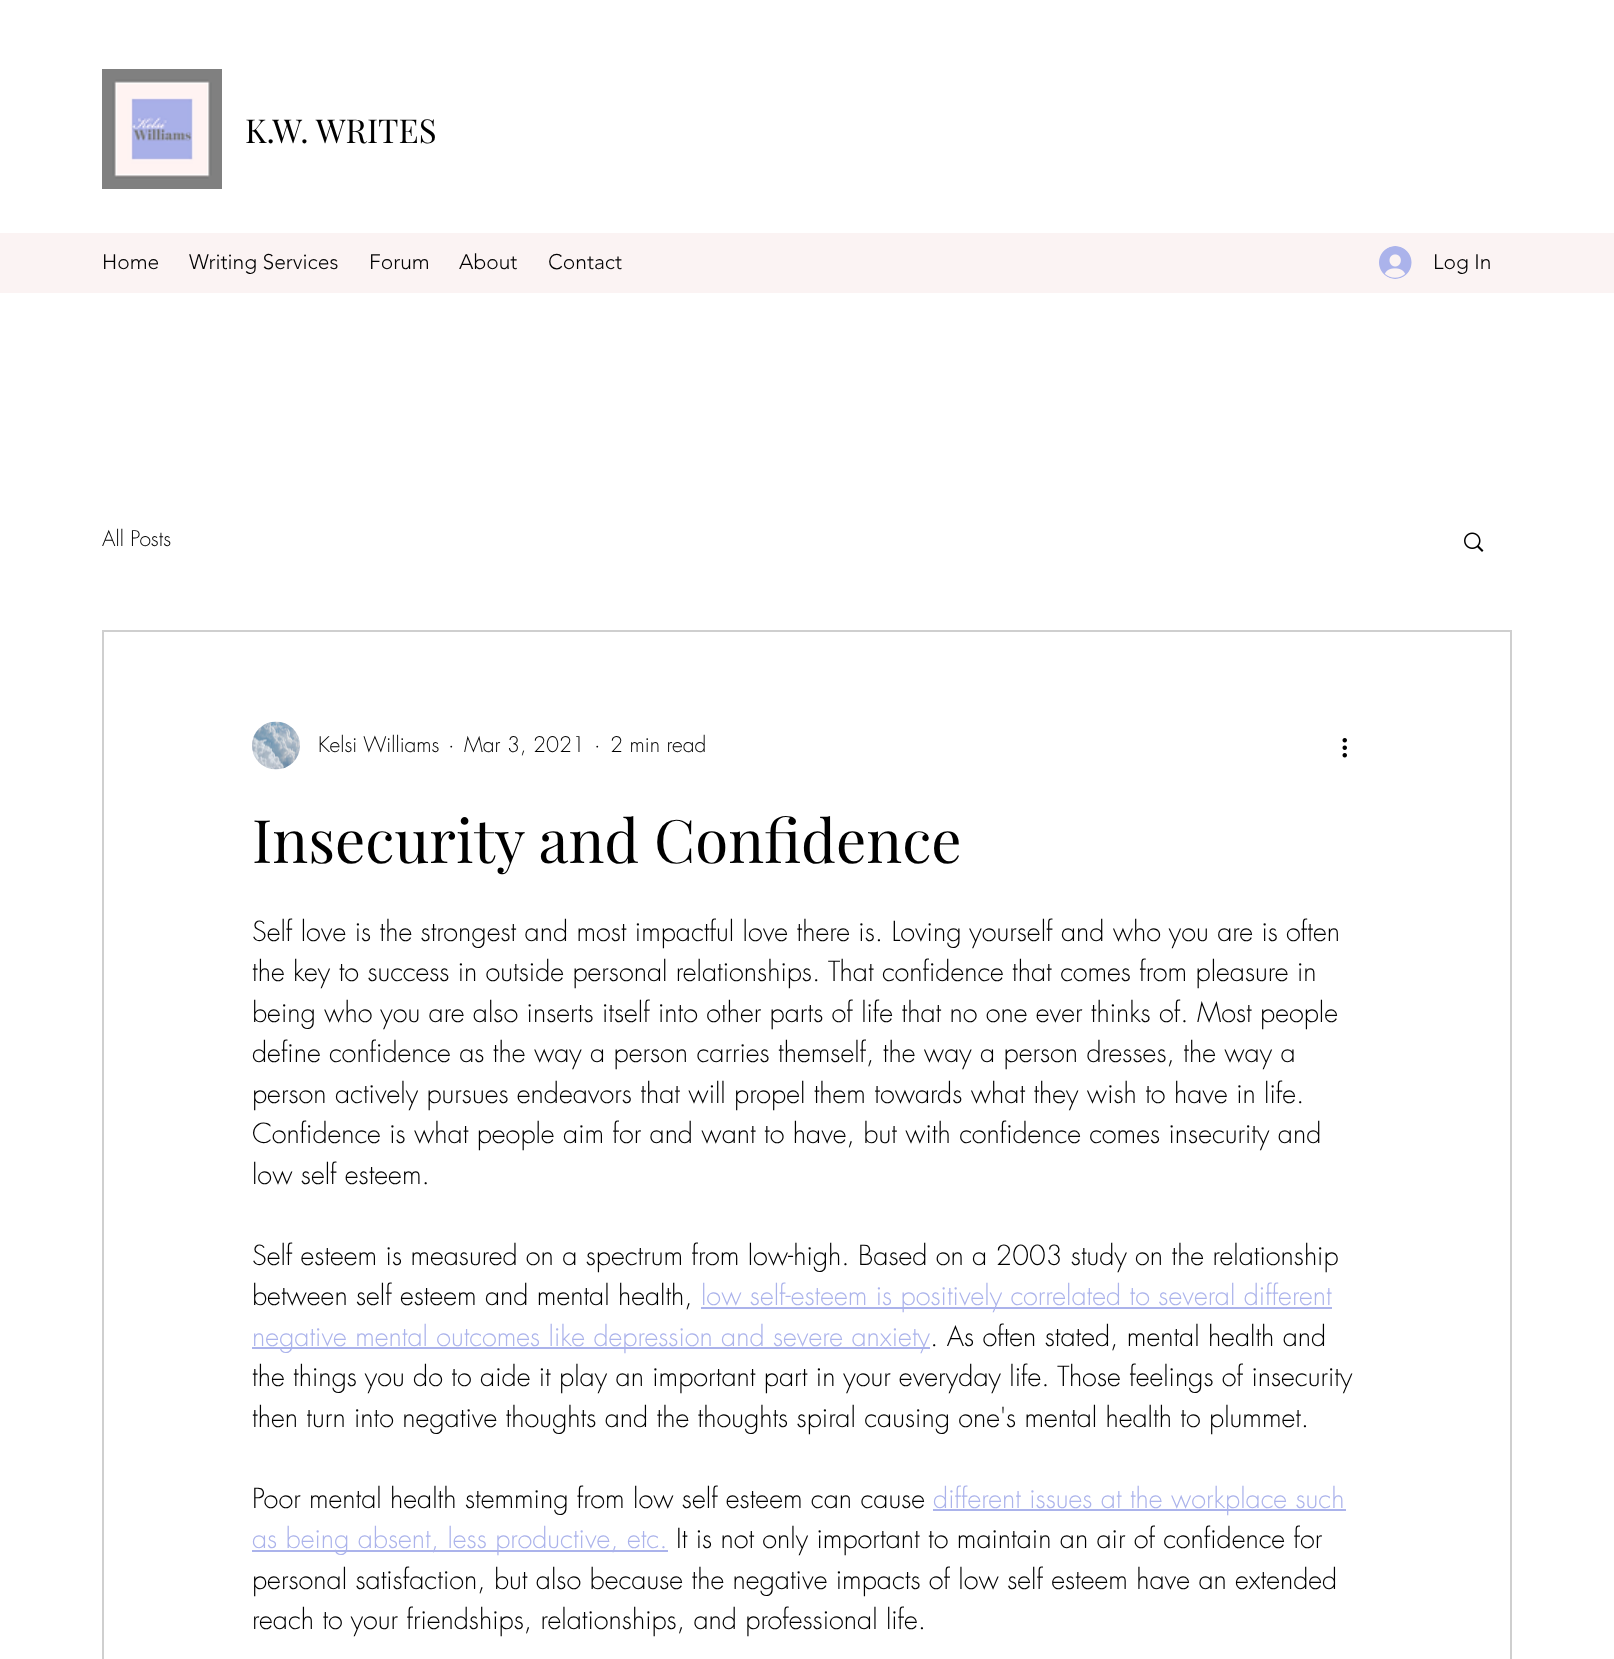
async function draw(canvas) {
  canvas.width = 1614
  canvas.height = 1659
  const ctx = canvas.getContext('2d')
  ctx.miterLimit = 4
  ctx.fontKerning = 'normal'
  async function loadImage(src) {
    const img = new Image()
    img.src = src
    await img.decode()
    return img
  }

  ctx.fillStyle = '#fff'
  ctx.fillRect(0, 0, 1614, 1659)
  ctx.drawImage(await loadImage('image0.png'), 102, 69, 120, 120)
  ctx.font = '33px Playfair Display'
  ctx.fillStyle = '#000'
  ctx.fillText('K.W. WRITES', 245, 143)
  ctx.fillStyle = '#fbf3f3'
  ctx.fillRect(0, 233, 1614, 60)
  ctx.font = '300 21px "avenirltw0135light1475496"'
  ctx.fillStyle = '#000'
  ctx.fillText('Home', 102, 269)
  ctx.fillText('Writing Services', 189, 269)
  ctx.fillText('Forum', 369, 269)
  ctx.fillText('About', 459, 269)
  ctx.fillText('Contact', 548, 269)
  ctx.drawImage(await loadImage('image1.png'), 1379, 246, 33, 33)
  ctx.fillText('Log In', 1433, 269)
  ctx.font = '300 21px futura'
  ctx.fillText('All Posts', 102, 546)
  ctx.drawImage(await loadImage('image2.png'), 1464, 532, 20, 20)
  ctx.strokeStyle = '#cfcfcf'
  ctx.lineWidth = 2
  ctx.strokeRect(103, 631, 1408, 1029)
  ctx.drawImage(await loadImage('image3.png'), 252, 721, 48, 49)
  ctx.fillText('Kelsi Williams', 318, 752)
  ctx.fillText('·', 448, 752)
  ctx.fillText('Mar 3, 2021', 464, 752)
  ctx.fillText('·', 594, 752)
  ctx.fillText('2 min read', 610, 752)
  ctx.drawImage(await loadImage('image4.png'), 1342, 738, 5, 20)
  ctx.font = '60px Playfair Display'
  ctx.fillText('Insecurity and Confidence', 252, 863)
  ctx.font = '300 27px futura'
  ctx.fillText('Self love is the strongest and most impactful love there is. Loving yourself and who you are is often', 252, 941)
  ctx.fillText('the key to success in outside personal relationships. That confidence that comes from pleasure in', 252, 981)
  ctx.fillText('being who you are also inserts itself into other parts of life that no one ever thinks of. Most people', 252, 1022)
  ctx.fillText('define confidence as the way a person carries themself, the way a person dresses, the way a', 252, 1062)
  ctx.fillText('person actively pursues endeavors that will propel them towards what they wish to have in life.', 252, 1103)
  ctx.fillText('Confidence is what people aim for and want to have, but with confidence comes insecurity and', 252, 1143)
  ctx.fillText('low self esteem.', 252, 1184)
  ctx.fillText('Self esteem is measured on a spectrum from low-high. Based on a 2003 study on the relationship', 252, 1265)
  ctx.fillText('between self esteem and mental health,', 252, 1305)
  ctx.fillStyle = '#abb3eb'
  ctx.fillRect(701, 1307, 631, 2)
  ctx.fillText('low self-esteem is positively correlated to several different', 701, 1305)
  ctx.fillRect(252, 1347, 678, 2)
  ctx.fillText('negative mental outcomes like depression and severe anxiety', 252, 1346)
  ctx.fillStyle = '#000'
  ctx.fillText('. As often stated, mental health and', 930, 1346)
  ctx.fillText('the things you do to aide it play an important part in your everyday life. Those feelings of insecurity', 252, 1386)
  ctx.fillText('then turn into negative thoughts and the thoughts spiral causing one\'s mental health to plummet.', 252, 1427)
  ctx.fillText('Poor mental health stemming from low self esteem can cause', 252, 1508)
  ctx.fillStyle = '#abb3eb'
  ctx.fillRect(933, 1509, 413, 2)
  ctx.fillText('different issues at the workplace such', 933, 1508)
  ctx.fillRect(252, 1550, 416, 2)
  ctx.fillText('as being absent, less productive, etc.', 252, 1548)
  ctx.fillStyle = '#000'
  ctx.fillText('It is not only important to maintain an air of confidence for', 676, 1548)
  ctx.fillText('personal satisfaction, but also because the negative impacts of low self esteem have an extended', 252, 1589)
  ctx.fillText('reach to your friendships, relationships, and professional life.', 252, 1629)
}

draw(document.querySelector('canvas'))
